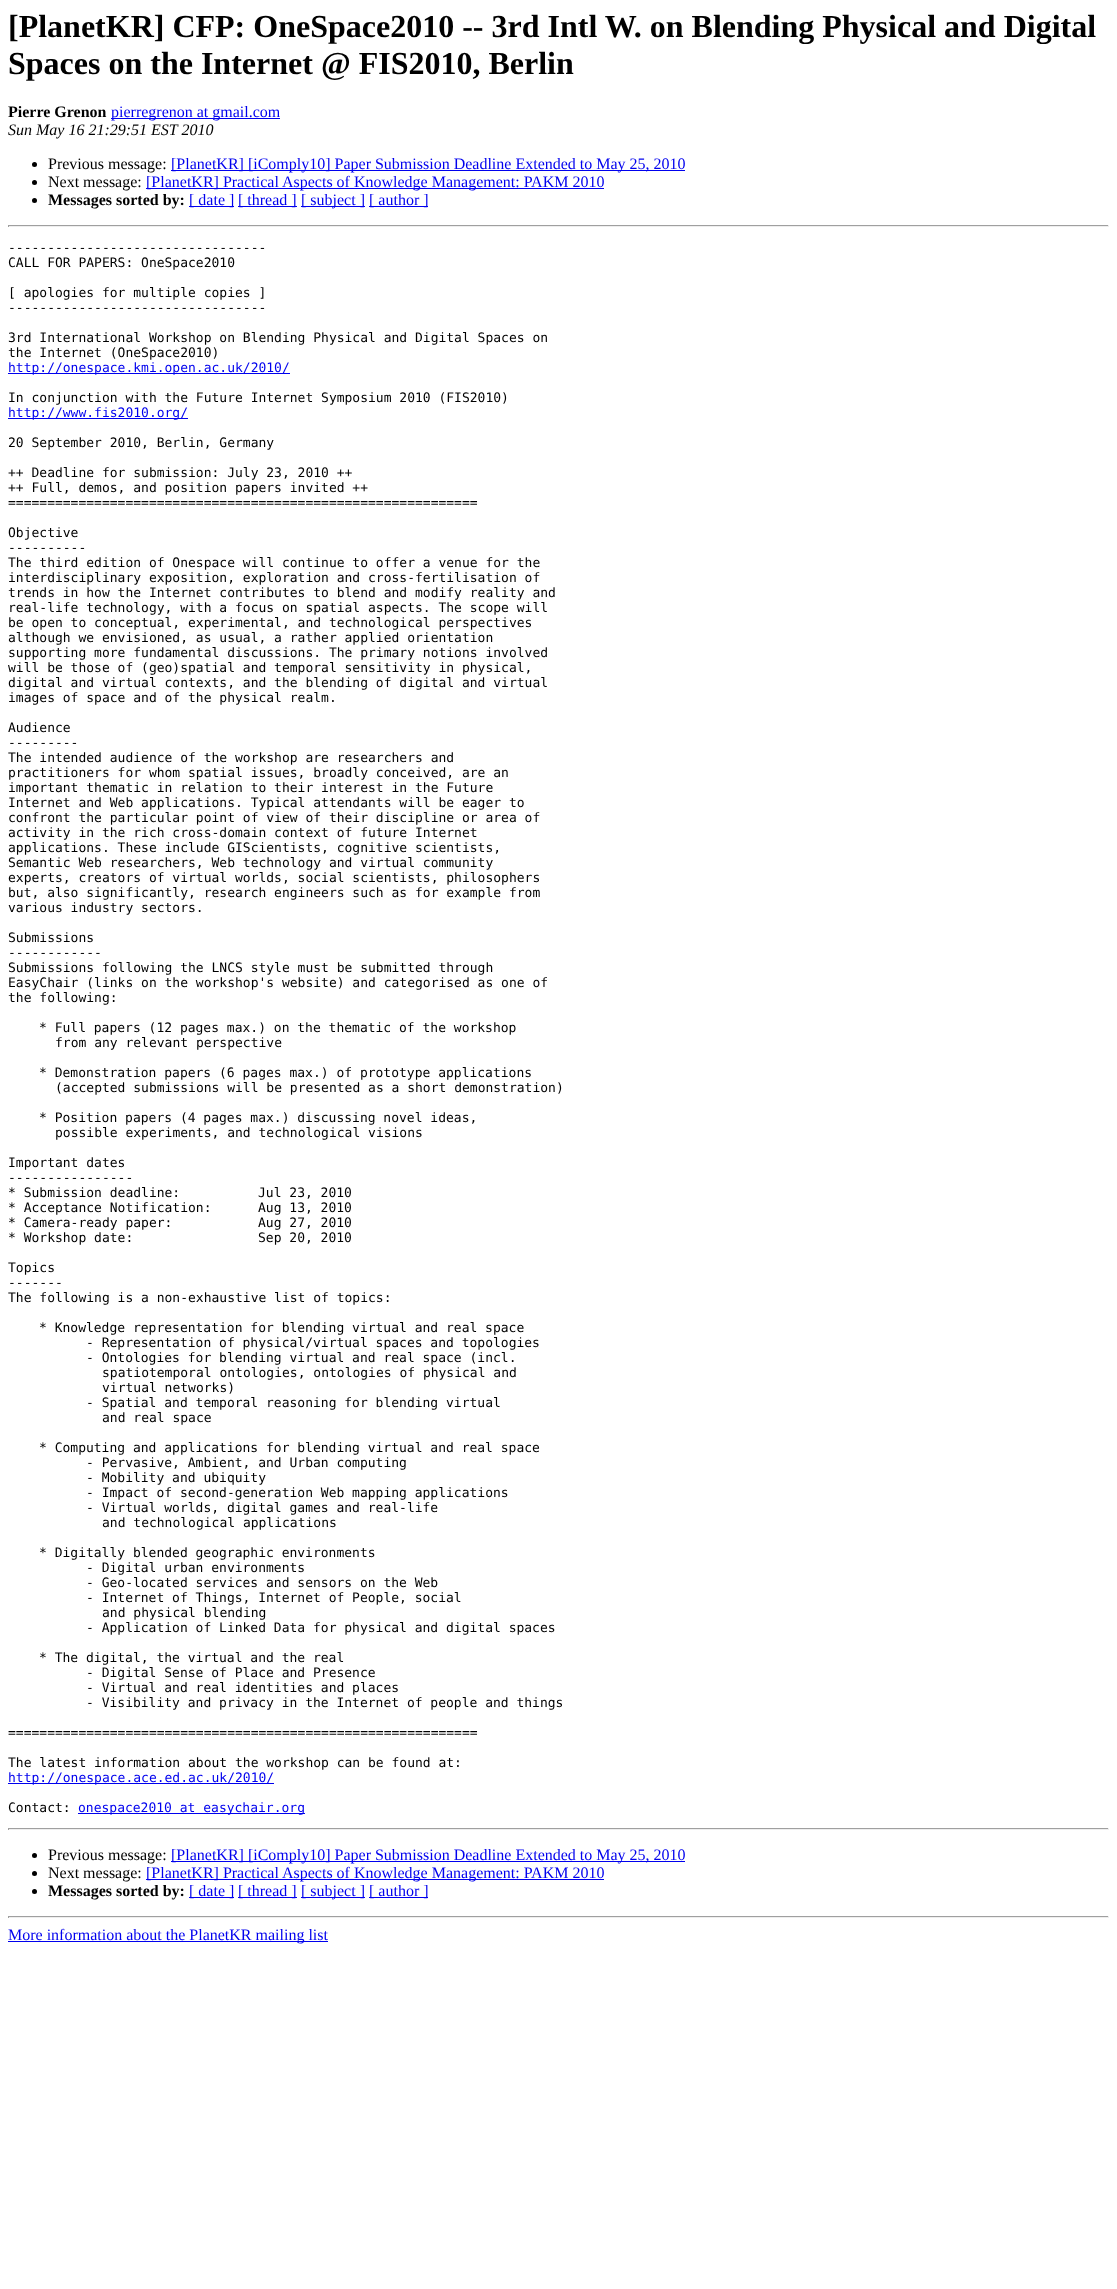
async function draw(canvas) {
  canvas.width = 1117
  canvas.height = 2289
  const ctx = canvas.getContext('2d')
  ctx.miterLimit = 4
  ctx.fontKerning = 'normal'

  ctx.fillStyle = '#fff'
  ctx.fillRect(0, 0, 1117, 2289)
  ctx.font = 'bold 32px Liberation Serif'
  ctx.fillStyle = '#000'
  ctx.fillText('[PlanetKR] CFP: OneSpace2010 -- 3rd Intl W. on Blending Physical and Digital', 8, 37)
  ctx.fillText('Spaces on the Internet @ FIS2010, Berlin', 8, 74)
  ctx.font = 'bold 16px Liberation Serif'
  ctx.fillText('Pierre Grenon', 8, 117)
  ctx.fillStyle = '#00e'
  ctx.fillRect(111, 118, 169, 1)
  ctx.font = '16px Liberation Serif'
  ctx.fillText('pierregrenon at gmail.com', 111, 117)
  ctx.font = 'italic 16px Liberation Serif'
  ctx.fillStyle = '#000'
  ctx.fillText('Sun May 16 21:29:51 EST 2010', 8, 135)
  ctx.beginPath()
  ctx.arc(34.5, 164.5, 2.5, 0, 2 * Math.PI)
  ctx.fill()
  ctx.font = '16px Liberation Serif'
  ctx.fillText('Previous message:', 48, 169)
  ctx.fillStyle = '#00e'
  ctx.fillRect(171, 170, 514, 1)
  ctx.fillText('[PlanetKR] [iComply10] Paper Submission Deadline Extended to May 25, 2010', 171, 169)
  ctx.fillStyle = '#000'
  ctx.beginPath()
  ctx.arc(34.5, 182.5, 2.5, 0, 2 * Math.PI)
  ctx.fill()
  ctx.fillText('Next message:', 48, 187)
  ctx.fillStyle = '#00e'
  ctx.fillRect(146, 188, 458, 1)
  ctx.fillText('[PlanetKR] Practical Aspects of Knowledge Management: PAKM 2010', 146, 187)
  ctx.fillStyle = '#000'
  ctx.beginPath()
  ctx.arc(34.5, 200.5, 2.5, 0, 2 * Math.PI)
  ctx.fill()
  ctx.font = 'bold 16px Liberation Serif'
  ctx.fillText('Messages sorted by:', 48, 205)
  ctx.fillStyle = '#00e'
  ctx.fillRect(189, 206, 45, 1)
  ctx.font = '16px Liberation Serif'
  ctx.fillText('[ date ]', 189, 205)
  ctx.fillRect(238, 206, 59, 1)
  ctx.fillText('[ thread ]', 238, 205)
  ctx.fillRect(301, 206, 64, 1)
  ctx.fillText('[ subject ]', 301, 205)
  ctx.fillRect(369, 206, 59, 1)
  ctx.fillText('[ author ]', 369, 205)
  ctx.fillStyle = '#9f9f9f'
  ctx.fillRect(8, 225, 1101, 1)
  ctx.fillStyle = '#eee'
  ctx.fillRect(1108, 225, 1, 2)
  ctx.fillRect(8, 226, 1101, 1)
  ctx.fillStyle = '#9f9f9f'
  ctx.fillRect(8, 225, 1, 2)
  ctx.font = '13px DejaVu Sans Mono'
  ctx.fillStyle = '#000'
  ctx.fillText('---------------------------------', 8, 252)
  ctx.fillText('CALL FOR PAPERS: OneSpace2010', 8, 267)
  ctx.fillText('[ apologies for multiple copies ]', 8, 297)
  ctx.fillText('---------------------------------', 8, 312)
  ctx.fillText('3rd International Workshop on Blending Physical and Digital Spaces on', 8, 342)
  ctx.fillText('the Internet (OneSpace2010)', 8, 357)
  ctx.fillStyle = '#00e'
  ctx.fillRect(8, 373, 282, 1)
  ctx.fillText('http://onespace.kmi.open.ac.uk/2010/', 8, 372)
  ctx.fillStyle = '#000'
  ctx.fillText('In conjunction with the Future Internet Symposium 2010 (FIS2010)', 8, 402)
  ctx.fillStyle = '#00e'
  ctx.fillRect(8, 418, 180, 1)
  ctx.fillText('http://www.fis2010.org/', 8, 417)
  ctx.fillStyle = '#000'
  ctx.fillText('20 September 2010, Berlin, Germany', 8, 447)
  ctx.fillText('++ Deadline for submission: July 23, 2010 ++', 8, 477)
  ctx.fillText('++ Full, demos, and position papers invited ++', 8, 492)
  ctx.fillText('============================================================', 8, 507)
  ctx.fillText('Objective', 8, 537)
  ctx.fillText('----------', 8, 552)
  ctx.fillText('The third edition of Onespace will continue to offer a venue for the', 8, 567)
  ctx.fillText('interdisciplinary exposition, exploration and cross-fertilisation of', 8, 582)
  ctx.fillText('trends in how the Internet contributes to blend and modify reality and', 8, 597)
  ctx.fillText('real-life technology, with a focus on spatial aspects. The scope will', 8, 612)
  ctx.fillText('be open to conceptual, experimental, and technological perspectives', 8, 627)
  ctx.fillText('although we envisioned, as usual, a rather applied orientation', 8, 642)
  ctx.fillText('supporting more fundamental discussions. The primary notions involved', 8, 657)
  ctx.fillText('will be those of (geo)spatial and temporal sensitivity in physical,', 8, 672)
  ctx.fillText('digital and virtual contexts, and the blending of digital and virtual', 8, 687)
  ctx.fillText('images of space and of the physical realm.', 8, 702)
  ctx.fillText('Audience', 8, 732)
  ctx.fillText('---------', 8, 747)
  ctx.fillText('The intended audience of the workshop are researchers and', 8, 762)
  ctx.fillText('practitioners for whom spatial issues, broadly conceived, are an', 8, 777)
  ctx.fillText('important thematic in relation to their interest in the Future', 8, 792)
  ctx.fillText('Internet and Web applications. Typical attendants will be eager to', 8, 807)
  ctx.fillText('confront the particular point of view of their discipline or area of', 8, 822)
  ctx.fillText('activity in the rich cross-domain context of future Internet', 8, 837)
  ctx.fillText('applications. These include GIScientists, cognitive scientists,', 8, 852)
  ctx.fillText('Semantic Web researchers, Web technology and virtual community', 8, 867)
  ctx.fillText('experts, creators of virtual worlds, social scientists, philosophers', 8, 882)
  ctx.fillText('but, also significantly, research engineers such as for example from', 8, 897)
  ctx.fillText('various industry sectors.', 8, 912)
  ctx.fillText('Submissions', 8, 942)
  ctx.fillText('------------', 8, 957)
  ctx.fillText('Submissions following the LNCS style must be submitted through', 8, 972)
  ctx.fillText('EasyChair (links on the workshop\'s website) and categorised as one of', 8, 987)
  ctx.fillText('the following:', 8, 1002)
  ctx.fillText('* Full papers (12 pages max.) on the thematic of the workshop', 39, 1032)
  ctx.fillText('from any relevant perspective', 55, 1047)
  ctx.fillText('* Demonstration papers (6 pages max.) of prototype applications', 39, 1077)
  ctx.fillText('(accepted submissions will be presented as a short demonstration)', 55, 1092)
  ctx.fillText('* Position papers (4 pages max.) discussing novel ideas,', 39, 1122)
  ctx.fillText('possible experiments, and technological visions', 55, 1137)
  ctx.fillText('Important dates', 8, 1167)
  ctx.fillText('----------------', 8, 1182)
  ctx.fillText('* Submission deadline:', 8, 1197)
  ctx.fillText('Jul 23, 2010', 258, 1197)
  ctx.fillText('* Acceptance Notification:', 8, 1212)
  ctx.fillText('Aug 13, 2010', 258, 1212)
  ctx.fillText('* Camera-ready paper:', 8, 1227)
  ctx.fillText('Aug 27, 2010', 258, 1227)
  ctx.fillText('* Workshop date:', 8, 1242)
  ctx.fillText('Sep 20, 2010', 258, 1242)
  ctx.fillText('Topics', 8, 1272)
  ctx.fillText('-------', 8, 1287)
  ctx.fillText('The following is a non-exhaustive list of topics:', 8, 1302)
  ctx.fillText('* Knowledge representation for blending virtual and real space', 39, 1332)
  ctx.fillText('- Representation of physical/virtual spaces and topologies', 86, 1347)
  ctx.fillText('- Ontologies for blending virtual and real space (incl.', 86, 1362)
  ctx.fillText('spatiotemporal ontologies, ontologies of physical and', 102, 1377)
  ctx.fillText('virtual networks)', 102, 1392)
  ctx.fillText('- Spatial and temporal reasoning for blending virtual', 86, 1407)
  ctx.fillText('and real space', 102, 1422)
  ctx.fillText('* Computing and applications for blending virtual and real space', 39, 1452)
  ctx.fillText('- Pervasive, Ambient, and Urban computing', 86, 1467)
  ctx.fillText('- Mobility and ubiquity', 86, 1482)
  ctx.fillText('- Impact of second-generation Web mapping applications', 86, 1497)
  ctx.fillText('- Virtual worlds, digital games and real-life', 86, 1512)
  ctx.fillText('and technological applications', 102, 1527)
  ctx.fillText('* Digitally blended geographic environments', 39, 1557)
  ctx.fillText('- Digital urban environments', 86, 1572)
  ctx.fillText('- Geo-located services and sensors on the Web', 86, 1587)
  ctx.fillText('- Internet of Things, Internet of People, social', 86, 1602)
  ctx.fillText('and physical blending', 102, 1617)
  ctx.fillText('- Application of Linked Data for physical and digital spaces', 86, 1632)
  ctx.fillText('* The digital, the virtual and the real', 39, 1662)
  ctx.fillText('- Digital Sense of Place and Presence', 86, 1677)
  ctx.fillText('- Virtual and real identities and places', 86, 1692)
  ctx.fillText('- Visibility and privacy in the Internet of people and things', 86, 1707)
  ctx.fillText('============================================================', 8, 1737)
  ctx.fillText('The latest information about the workshop can be found at:', 8, 1767)
  ctx.fillStyle = '#00e'
  ctx.fillRect(8, 1783, 266, 1)
  ctx.fillText('http://onespace.ace.ed.ac.uk/2010/', 8, 1782)
  ctx.fillStyle = '#000'
  ctx.fillText('Contact:', 8, 1812)
  ctx.fillStyle = '#00e'
  ctx.fillRect(78, 1813, 227, 1)
  ctx.fillText('onespace2010 at easychair.org', 78, 1812)
  ctx.fillStyle = '#9f9f9f'
  ctx.fillRect(8, 1828, 1101, 1)
  ctx.fillStyle = '#eee'
  ctx.fillRect(1108, 1828, 1, 2)
  ctx.fillRect(8, 1829, 1101, 1)
  ctx.fillStyle = '#9f9f9f'
  ctx.fillRect(8, 1828, 1, 2)
  ctx.fillStyle = '#000'
  ctx.beginPath()
  ctx.arc(34.5, 1855.5, 2.5, 0, 2 * Math.PI)
  ctx.fill()
  ctx.font = '16px Liberation Serif'
  ctx.fillText('Previous message:', 48, 1860)
  ctx.fillStyle = '#00e'
  ctx.fillRect(171, 1861, 514, 1)
  ctx.fillText('[PlanetKR] [iComply10] Paper Submission Deadline Extended to May 25, 2010', 171, 1860)
  ctx.fillStyle = '#000'
  ctx.beginPath()
  ctx.arc(34.5, 1873.5, 2.5, 0, 2 * Math.PI)
  ctx.fill()
  ctx.fillText('Next message:', 48, 1878)
  ctx.fillStyle = '#00e'
  ctx.fillRect(146, 1879, 458, 1)
  ctx.fillText('[PlanetKR] Practical Aspects of Knowledge Management: PAKM 2010', 146, 1878)
  ctx.fillStyle = '#000'
  ctx.beginPath()
  ctx.arc(34.5, 1891.5, 2.5, 0, 2 * Math.PI)
  ctx.fill()
  ctx.font = 'bold 16px Liberation Serif'
  ctx.fillText('Messages sorted by:', 48, 1896)
  ctx.fillStyle = '#00e'
  ctx.fillRect(189, 1897, 45, 1)
  ctx.font = '16px Liberation Serif'
  ctx.fillText('[ date ]', 189, 1896)
  ctx.fillRect(238, 1897, 59, 1)
  ctx.fillText('[ thread ]', 238, 1896)
  ctx.fillRect(301, 1897, 64, 1)
  ctx.fillText('[ subject ]', 301, 1896)
  ctx.fillRect(369, 1897, 59, 1)
  ctx.fillText('[ author ]', 369, 1896)
  ctx.fillStyle = '#9f9f9f'
  ctx.fillRect(8, 1916, 1101, 1)
  ctx.fillStyle = '#eee'
  ctx.fillRect(1108, 1916, 1, 2)
  ctx.fillRect(8, 1917, 1101, 1)
  ctx.fillStyle = '#9f9f9f'
  ctx.fillRect(8, 1916, 1, 2)
  ctx.fillStyle = '#00e'
  ctx.fillRect(8, 1941, 320, 1)
  ctx.fillText('More information about the PlanetKR mailing list', 8, 1940)
}

draw(document.querySelector('canvas'))
